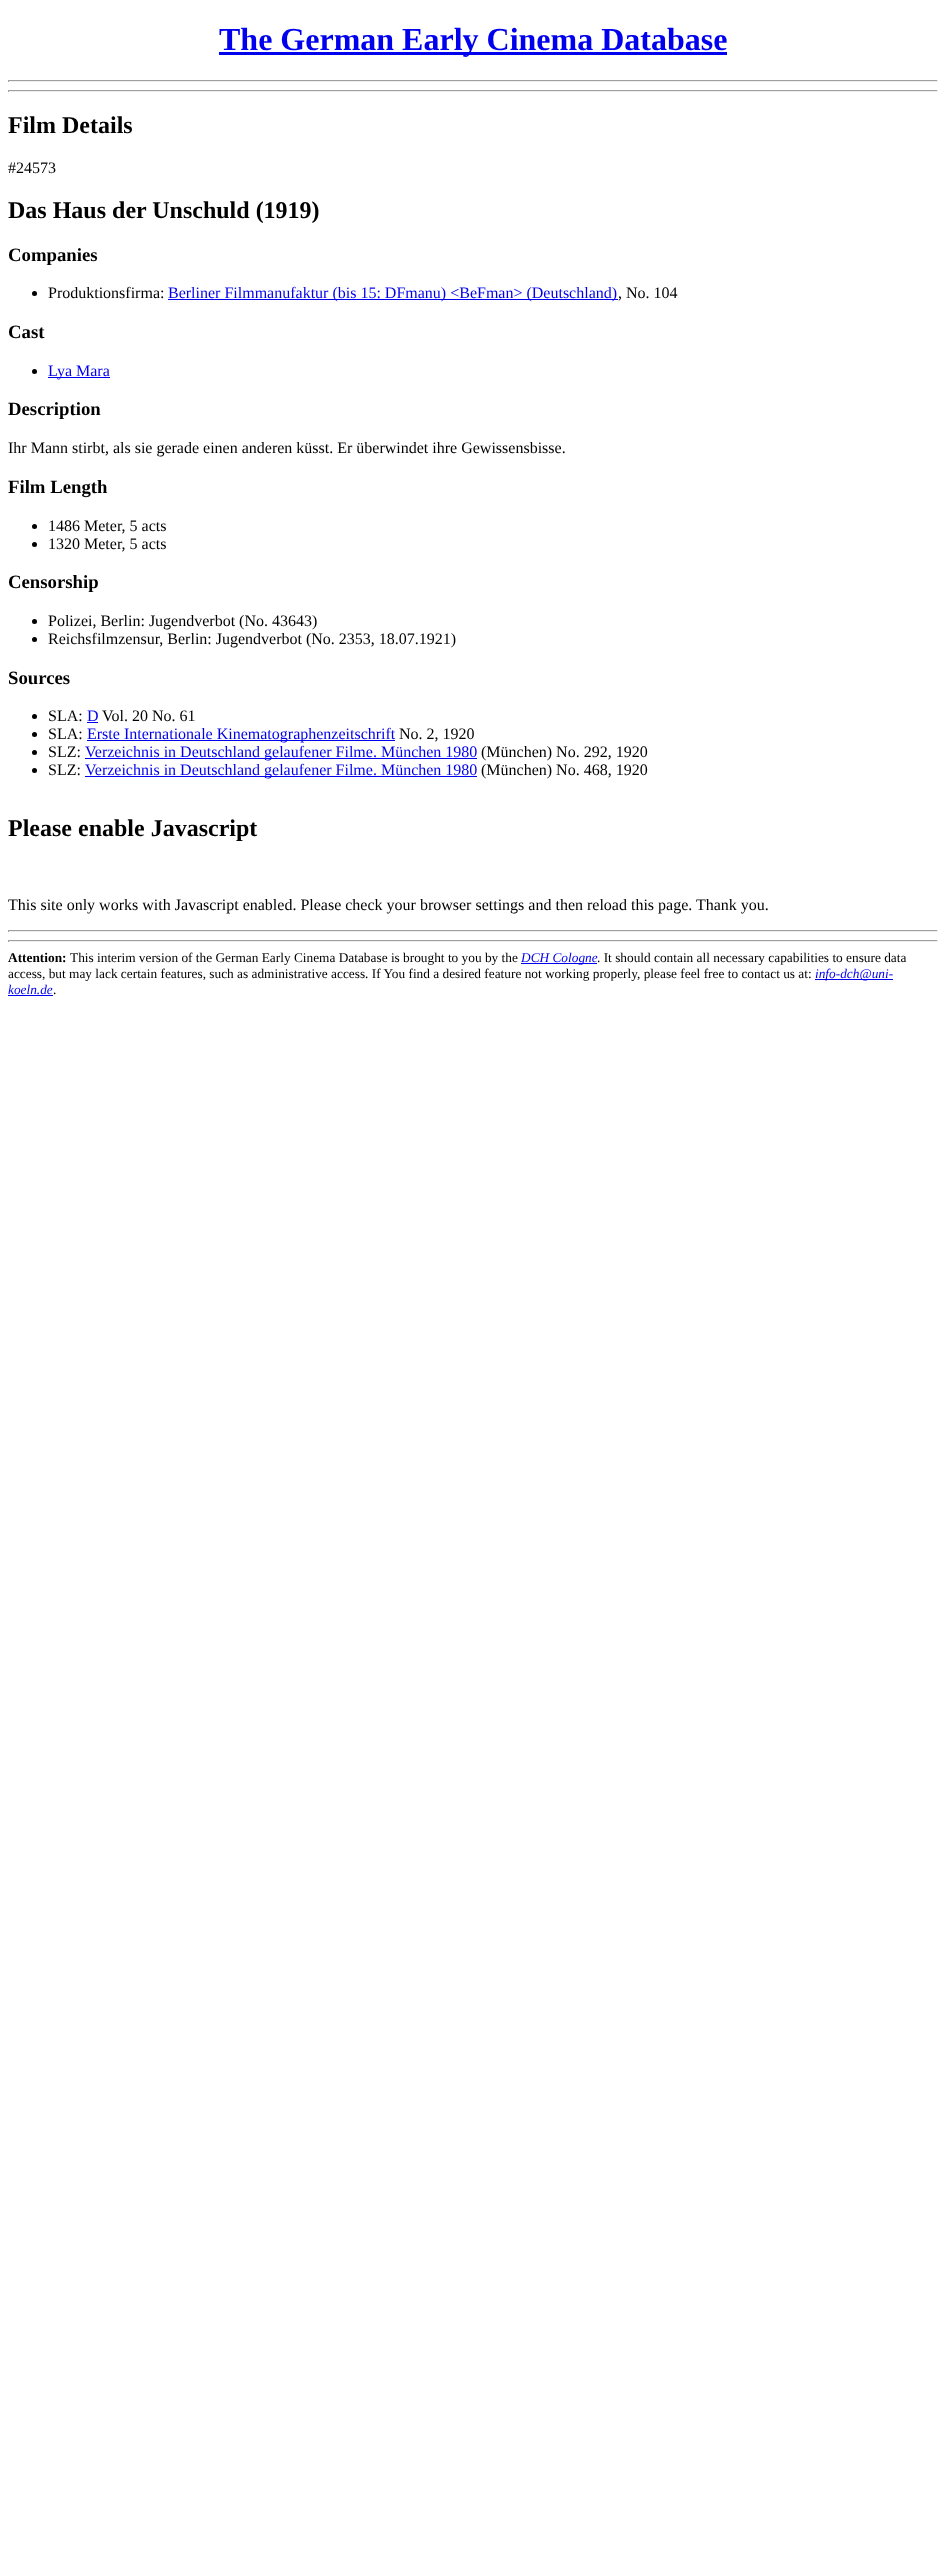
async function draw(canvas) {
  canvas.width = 946
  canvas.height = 2557
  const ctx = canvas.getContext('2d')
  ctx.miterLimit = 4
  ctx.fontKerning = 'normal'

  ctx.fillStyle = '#fff'
  ctx.fillRect(0, 0, 946, 2557)
  ctx.fillStyle = '#00e'
  ctx.fillRect(219, 52, 508, 3)
  ctx.font = 'bold 32px Liberation Serif'
  ctx.fillText('The German Early Cinema Database', 219, 50)
  ctx.fillStyle = '#9f9f9f'
  ctx.fillRect(8, 80, 930, 1)
  ctx.fillStyle = '#eee'
  ctx.fillRect(937, 80, 1, 2)
  ctx.fillRect(8, 81, 930, 1)
  ctx.fillStyle = '#9f9f9f'
  ctx.fillRect(8, 80, 1, 2)
  ctx.fillRect(8, 90, 930, 1)
  ctx.fillStyle = '#eee'
  ctx.fillRect(937, 90, 1, 2)
  ctx.fillRect(8, 91, 930, 1)
  ctx.fillStyle = '#9f9f9f'
  ctx.fillRect(8, 90, 1, 2)
  ctx.font = 'bold 24px Liberation Serif'
  ctx.fillStyle = '#000'
  ctx.fillText('Film Details', 8, 133)
  ctx.font = '16px Liberation Serif'
  ctx.fillText('#24573', 8, 173)
  ctx.font = 'bold 24px Liberation Serif'
  ctx.fillText('Das Haus der Unschuld (1919)', 8, 218)
  ctx.font = 'bold 18.75px Liberation Serif'
  ctx.fillText('Companies', 8, 261)
  ctx.beginPath()
  ctx.arc(34.5, 293.5, 2.5, 0, 2 * Math.PI)
  ctx.fill()
  ctx.font = '16px Liberation Serif'
  ctx.fillText('Produktionsfirma:', 48, 298)
  ctx.fillStyle = '#00e'
  ctx.fillRect(168, 299, 450, 1)
  ctx.fillText('Berliner Filmmanufaktur (bis 15: DFmanu) <BeFman> (Deutschland)', 168, 298)
  ctx.fillStyle = '#000'
  ctx.fillText(', No. 104', 618, 298)
  ctx.font = 'bold 18.75px Liberation Serif'
  ctx.fillText('Cast', 8, 338)
  ctx.beginPath()
  ctx.arc(34.5, 371.5, 2.5, 0, 2 * Math.PI)
  ctx.fill()
  ctx.fillStyle = '#00e'
  ctx.fillRect(48, 377, 62, 1)
  ctx.font = '16px Liberation Serif'
  ctx.fillText('Lya Mara', 48, 376)
  ctx.font = 'bold 18.75px Liberation Serif'
  ctx.fillStyle = '#000'
  ctx.fillText('Description', 8, 415)
  ctx.font = '16px Liberation Serif'
  ctx.fillText('Ihr Mann stirbt, als sie gerade einen anderen küsst. Er überwindet ihre Gewissensbisse.', 8, 453)
  ctx.font = 'bold 18.75px Liberation Serif'
  ctx.fillText('Film Length', 8, 493)
  ctx.beginPath()
  ctx.arc(34.5, 526.5, 2.5, 0, 2 * Math.PI)
  ctx.fill()
  ctx.font = '16px Liberation Serif'
  ctx.fillText('1486 Meter, 5 acts', 48, 531)
  ctx.beginPath()
  ctx.arc(34.5, 544.5, 2.5, 0, 2 * Math.PI)
  ctx.fill()
  ctx.fillText('1320 Meter, 5 acts', 48, 549)
  ctx.font = 'bold 18.75px Liberation Serif'
  ctx.fillText('Censorship', 8, 588)
  ctx.beginPath()
  ctx.arc(34.5, 621.5, 2.5, 0, 2 * Math.PI)
  ctx.fill()
  ctx.font = '16px Liberation Serif'
  ctx.fillText('Polizei, Berlin: Jugendverbot (No. 43643)', 48, 626)
  ctx.beginPath()
  ctx.arc(34.5, 639.5, 2.5, 0, 2 * Math.PI)
  ctx.fill()
  ctx.fillText('Reichsfilmzensur, Berlin: Jugendverbot (No. 2353, 18.07.1921)', 48, 644)
  ctx.font = 'bold 18.75px Liberation Serif'
  ctx.fillText('Sources', 8, 684)
  ctx.beginPath()
  ctx.arc(34.5, 716.5, 2.5, 0, 2 * Math.PI)
  ctx.fill()
  ctx.font = '16px Liberation Serif'
  ctx.fillText('SLA:', 48, 721)
  ctx.fillStyle = '#00e'
  ctx.fillText('D', 87, 721)
  ctx.fillRect(87, 722, 11, 1)
  ctx.fillStyle = '#000'
  ctx.fillText('Vol. 20 No. 61', 102, 721)
  ctx.beginPath()
  ctx.arc(34.5, 734.5, 2.5, 0, 2 * Math.PI)
  ctx.fill()
  ctx.fillText('SLA:', 48, 739)
  ctx.fillStyle = '#00e'
  ctx.fillRect(87, 740, 308, 1)
  ctx.fillText('Erste Internationale Kinematographenzeitschrift', 87, 739)
  ctx.fillStyle = '#000'
  ctx.fillText('No. 2, 1920', 399, 739)
  ctx.beginPath()
  ctx.arc(34.5, 752.5, 2.5, 0, 2 * Math.PI)
  ctx.fill()
  ctx.fillText('SLZ:', 48, 757)
  ctx.fillStyle = '#00e'
  ctx.fillRect(85, 758, 392, 1)
  ctx.fillText('Verzeichnis in Deutschland gelaufener Filme. München 1980', 85, 757)
  ctx.fillStyle = '#000'
  ctx.fillText('(München) No. 292, 1920', 481, 757)
  ctx.beginPath()
  ctx.arc(34.5, 770.5, 2.5, 0, 2 * Math.PI)
  ctx.fill()
  ctx.fillText('SLZ:', 48, 775)
  ctx.fillStyle = '#00e'
  ctx.fillRect(85, 776, 392, 1)
  ctx.fillText('Verzeichnis in Deutschland gelaufener Filme. München 1980', 85, 775)
  ctx.fillStyle = '#000'
  ctx.fillText('(München) No. 468, 1920', 481, 775)
  ctx.font = 'bold 24px Liberation Serif'
  ctx.fillText('Please enable Javascript', 8, 836)
  ctx.font = '16px Liberation Serif'
  ctx.fillText('This site only works with Javascript enabled. Please check your browser settings and then reload this page. Thank you.', 8, 910)
  ctx.fillStyle = '#9f9f9f'
  ctx.fillRect(8, 930, 930, 1)
  ctx.fillStyle = '#eee'
  ctx.fillRect(937, 930, 1, 2)
  ctx.fillRect(8, 931, 930, 1)
  ctx.fillStyle = '#9f9f9f'
  ctx.fillRect(8, 930, 1, 2)
  ctx.fillRect(8, 940, 930, 1)
  ctx.fillStyle = '#eee'
  ctx.fillRect(937, 940, 1, 2)
  ctx.fillRect(8, 941, 930, 1)
  ctx.fillStyle = '#9f9f9f'
  ctx.fillRect(8, 940, 1, 2)
  ctx.font = 'bold 13.33px Liberation Serif'
  ctx.fillStyle = '#000'
  ctx.fillText('Attention:', 8, 962)
  ctx.font = '13.33px Liberation Serif'
  ctx.fillText('This interim version of the German Early Cinema Database is brought to you by the', 70, 962)
  ctx.fillStyle = '#00e'
  ctx.fillRect(521, 963, 76, 1)
  ctx.font = 'italic 13.33px Liberation Serif'
  ctx.fillText('DCH Cologne', 521, 962)
  ctx.font = '13.33px Liberation Serif'
  ctx.fillStyle = '#000'
  ctx.fillText('. It should contain all necessary capabilities to ensure data', 597, 962)
  ctx.fillText('access, but may lack certain features, such as administrative access. If You find a desired feature not working properly, please feel free to contact us at:', 8, 978)
  ctx.fillStyle = '#00e'
  ctx.fillRect(815, 979, 78, 1)
  ctx.font = 'italic 13.33px Liberation Serif'
  ctx.fillText('info-dch@uni-', 815, 978)
  ctx.fillText('koeln.de', 8, 994)
  ctx.font = '13.33px Liberation Serif'
  ctx.fillStyle = '#000'
  ctx.fillText('.', 53, 994)
  ctx.fillStyle = '#00e'
  ctx.fillRect(8, 995, 45, 1)
}

draw(document.querySelector('canvas'))
